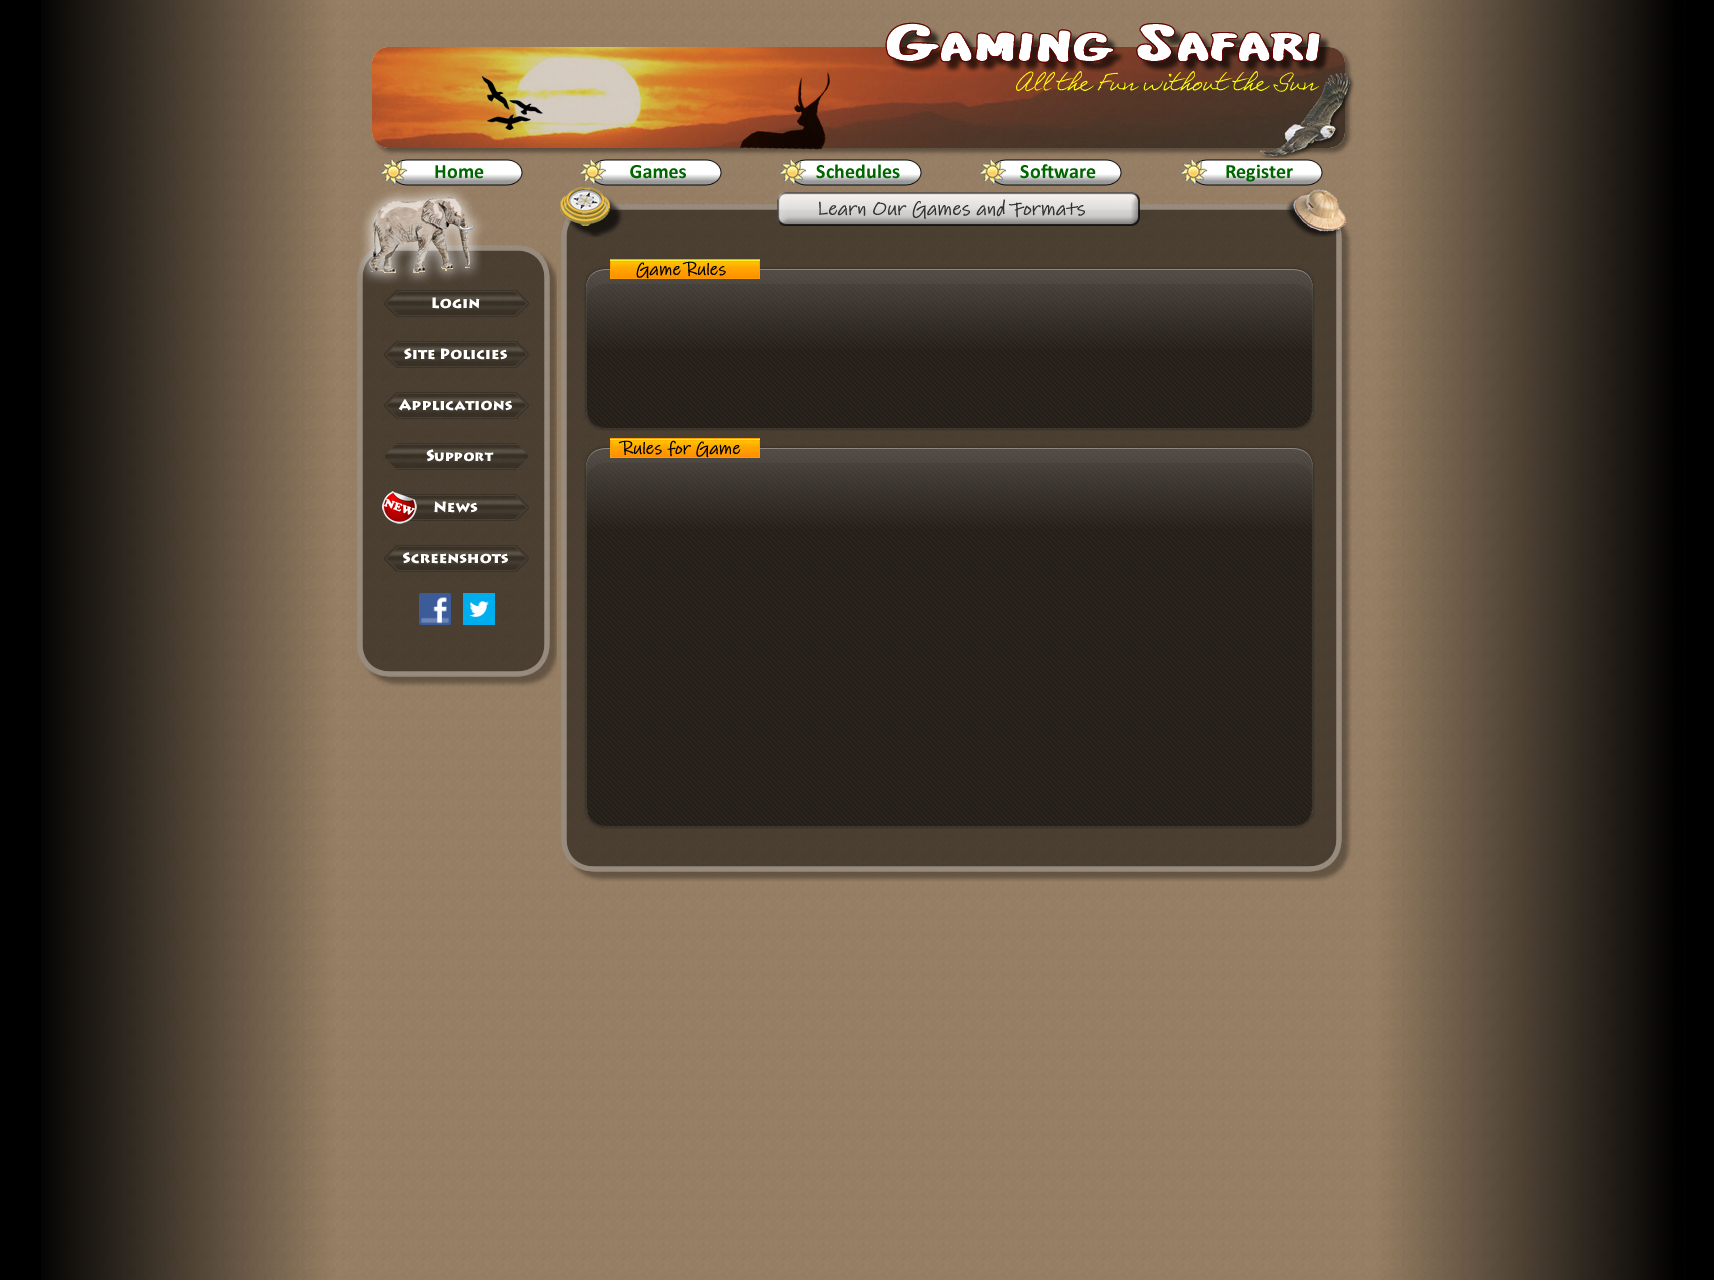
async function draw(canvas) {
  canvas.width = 1714
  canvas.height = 1280
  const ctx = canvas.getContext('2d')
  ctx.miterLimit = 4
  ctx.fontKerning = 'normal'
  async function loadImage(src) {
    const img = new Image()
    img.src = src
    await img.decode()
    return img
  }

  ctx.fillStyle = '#000'
  ctx.fillRect(0, 0, 1714, 1280)
  ctx.drawImage(await loadImage('image0.png'), 41, 0, 1645, 1280)
  ctx.drawImage(await loadImage('image1.png'), 372, 22, 983, 136)
  ctx.drawImage(await loadImage('image2.png'), 380, 158, 143, 28)
  ctx.drawImage(await loadImage('image3.png'), 579, 158, 143, 28)
  ctx.drawImage(await loadImage('image4.png'), 779, 158, 143, 28)
  ctx.drawImage(await loadImage('image5.png'), 979, 158, 143, 28)
  ctx.drawImage(await loadImage('image6.png'), 1180, 158, 143, 28)
  ctx.drawImage(await loadImage('image7.png'), 357, 187, 200, 500)
  ctx.drawImage(await loadImage('image8.png'), 384, 290, 145, 27)
  ctx.drawImage(await loadImage('image9.png'), 384, 341, 145, 27)
  ctx.drawImage(await loadImage('image10.png'), 384, 392, 145, 27)
  ctx.drawImage(await loadImage('image11.png'), 385, 443, 143, 27)
  ctx.drawImage(await loadImage('image12.png'), 382, 491, 147, 33)
  ctx.drawImage(await loadImage('image13.png'), 384, 545, 145, 27)
  ctx.drawImage(await loadImage('image14.png'), 419, 593, 32, 32)
  ctx.drawImage(await loadImage('image15.png'), 463, 593, 32, 32)
  ctx.drawImage(await loadImage('image16.png'), 560, 187, 791, 50)
  ctx.drawImage(await loadImage('image17.png'), 561, 237, 791, 598)
  ctx.drawImage(await loadImage('image18.png'), 584, 259, 731, 172)
  ctx.drawImage(await loadImage('image19.png'), 584, 438, 731, 391)
  ctx.drawImage(await loadImage('image20.png'), 561, 835, 791, 47)
}

draw(document.querySelector('canvas'))
